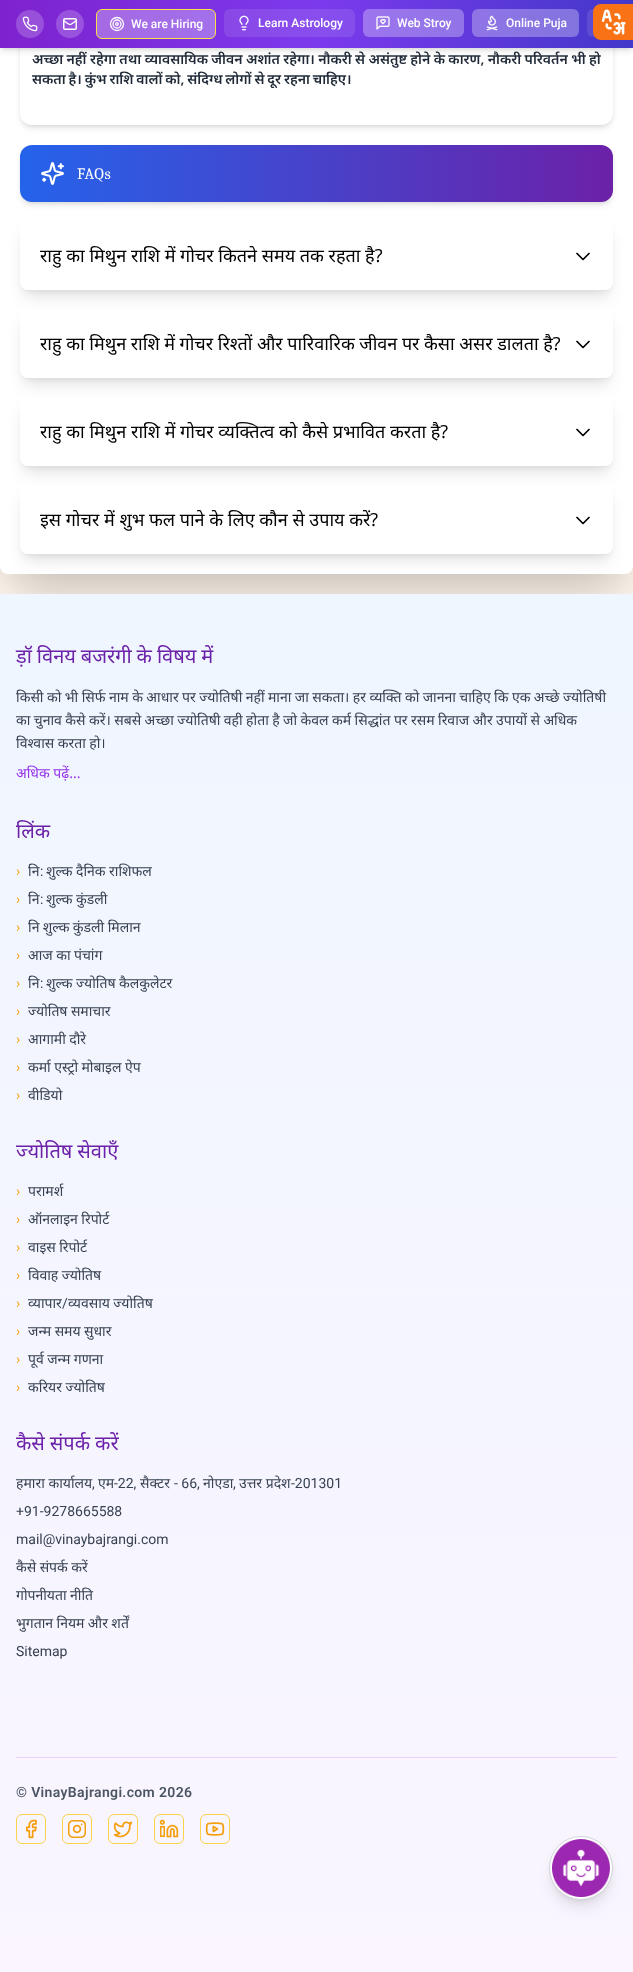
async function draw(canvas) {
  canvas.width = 633
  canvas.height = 1972
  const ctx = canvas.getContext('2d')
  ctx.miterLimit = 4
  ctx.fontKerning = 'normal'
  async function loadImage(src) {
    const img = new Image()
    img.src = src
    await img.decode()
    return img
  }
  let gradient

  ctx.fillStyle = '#fff7ed'
  ctx.fillRect(0, 0, 633, 1972)
  ctx.fillStyle = '#00000040'
  ctx.filter = 'blur(25px)'
  ctx.beginPath()
  ctx.rect(12, -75, 609, 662)
  ctx.fill()
  ctx.filter = 'none'
  ctx.fillStyle = '#fff'
  ctx.beginPath()
  ctx.roundRect(0, -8, 633, 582, 8)
  ctx.fill()
  ctx.fillStyle = '#0000001a'
  ctx.filter = 'blur(2px)'
  ctx.beginPath()
  ctx.roundRect(22, -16, 589, 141, 10)
  ctx.fill()
  ctx.filter = 'none'
  ctx.filter = 'blur(3px)'
  ctx.beginPath()
  ctx.roundRect(21, -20, 591, 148, 11)
  ctx.fill()
  ctx.filter = 'none'
  ctx.fillStyle = '#fff'
  ctx.beginPath()
  ctx.roundRect(20, -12, 593, 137, 12)
  ctx.fill()
  ctx.fillStyle = '#0000001a'
  ctx.filter = 'blur(2px)'
  ctx.beginPath()
  ctx.rect(2, 4, 629, 44)
  ctx.fill()
  ctx.filter = 'none'
  ctx.filter = 'blur(3px)'
  ctx.beginPath()
  ctx.rect(1, 5, 631, 46)
  ctx.fill()
  ctx.filter = 'none'
  gradient = ctx.createLinearGradient(0, 24, 633, 24)
  gradient.addColorStop(0, '#7e22ce')
  gradient.addColorStop(0.5, '#7c3aed')
  gradient.addColorStop(1, '#4338ca')
  ctx.fillStyle = gradient
  ctx.fillRect(0, 0, 633, 48)
  ctx.fillStyle = '#9850da'
  ctx.beginPath()
  ctx.arc(30, 24, 14, 0, 2 * Math.PI)
  ctx.fill()
  ctx.drawImage(await loadImage('image0.png'), 22, 16, 16, 16)
  ctx.fillStyle = '#9852dd'
  ctx.beginPath()
  ctx.arc(70, 24, 14, 0, 2 * Math.PI)
  ctx.fill()
  ctx.beginPath()
  ctx.roundRect(63.75, 18.75, 12.5, 10.5, 1.25)
  ctx.strokeStyle = '#fff'
  ctx.lineWidth = 1.5
  ctx.stroke()
  ctx.beginPath()
  ctx.moveTo(76.5, 20.5)
  ctx.bezierCurveTo(68.5, 26, 71.5, 26, 63.5, 20.5)
  ctx.lineWidth = 1.3
  ctx.lineCap = 'round'
  ctx.lineJoin = 'round'
  ctx.stroke()
  ctx.fillStyle = '#ffffff4d'
  ctx.beginPath()
  ctx.roundRect(96.5, 9.5, 119, 29, 5.5)
  ctx.fill()
  ctx.strokeStyle = '#fde047'
  ctx.lineWidth = 1
  ctx.lineJoin = 'miter'
  ctx.stroke()
  ctx.beginPath()
  ctx.arc(117, 24, 6.5, 0, 2 * Math.PI)
  ctx.strokeStyle = '#fff'
  ctx.lineWidth = 1.3
  ctx.stroke()
  ctx.beginPath()
  ctx.arc(117, 24, 4, 0, 2 * Math.PI)
  ctx.stroke()
  ctx.beginPath()
  ctx.arc(117, 24, 1.3, 0, 2 * Math.PI)
  ctx.stroke()
  ctx.font = '500 12px Roboto'
  ctx.fillStyle = '#fff'
  ctx.fillText('We are Hiring', 131, 28)
  ctx.fillStyle = '#ffffff1a'
  ctx.beginPath()
  ctx.roundRect(224, 9, 131, 28, 6)
  ctx.fill()
  ctx.drawImage(await loadImage('image1.png'), 239, 15, 10, 16)
  ctx.fillStyle = '#fff'
  ctx.fillText('Learn Astrology', 258, 27)
  ctx.fillStyle = '#ffffff4d'
  ctx.beginPath()
  ctx.roundRect(363, 9, 101, 28, 6)
  ctx.fill()
  ctx.drawImage(await loadImage('image2.png'), 376, 16, 14, 14)
  ctx.fillStyle = '#fff'
  ctx.fillText('Web Stroy', 397, 27)
  ctx.fillStyle = '#ffffff4d'
  ctx.beginPath()
  ctx.roundRect(472, 9, 107, 28, 6)
  ctx.fill()
  ctx.drawImage(await loadImage('image3.png'), 486, 15, 12, 16)
  ctx.fillStyle = '#fff'
  ctx.fillText('Online Puja', 506, 27)
  ctx.fillStyle = '#ffffff1a'
  ctx.beginPath()
  ctx.roundRect(587, 9, 46, 28, [6, 0, 0, 6])
  ctx.fill()
  ctx.fillStyle = '#f97316'
  ctx.beginPath()
  ctx.roundRect(593, 4, 40, 36, [8, 0, 0, 8])
  ctx.fill()
  ctx.drawImage(await loadImage('image4.png'), 601, 9, 25, 26)
  ctx.wordSpacing = '-0.25px'
  ctx.font = '600 14px Noto Sans'
  ctx.fillStyle = '#1f2937'
  ctx.fillText('अच्छा नहीं रहेगा तथा व्यावसायिक जीवन अशांत रहेगा। नौकरी से असंतुष्ट होने के कारण, नौकरी परिवर्तन भी हो', 32, 64)
  ctx.wordSpacing = '-0.75px'
  ctx.fillText('सकता है। कुंभ राशि वालों को, संदिग्ध लोगों से दूर रहना चाहिए।', 32, 84)
  ctx.fillStyle = '#0000001a'
  ctx.filter = 'blur(2px)'
  ctx.beginPath()
  ctx.roundRect(22, 149, 589, 53, 10)
  ctx.fill()
  ctx.filter = 'none'
  ctx.filter = 'blur(3px)'
  ctx.beginPath()
  ctx.roundRect(21, 150, 591, 55, 11)
  ctx.fill()
  ctx.filter = 'none'
  gradient = ctx.createLinearGradient(20, 174, 613, 173)
  gradient.addColorStop(0, '#2563eb')
  gradient.addColorStop(1, '#6b21a8')
  ctx.fillStyle = gradient
  ctx.beginPath()
  ctx.roundRect(20, 145, 593, 57, 12)
  ctx.fill()
  ctx.drawImage(await loadImage('image5.png'), 41, 162, 23, 23)
  ctx.letterSpacing = '0.5px'
  ctx.wordSpacing = '0px'
  ctx.font = '16px Caladea'
  ctx.fillStyle = '#fff'
  ctx.fillText('FAQs', 77, 179)
  ctx.fillStyle = '#0000001a'
  ctx.filter = 'blur(3px)'
  ctx.beginPath()
  ctx.roundRect(24, 230, 585, 60, 4)
  ctx.fill()
  ctx.filter = 'none'
  ctx.filter = 'blur(7.5px)'
  ctx.beginPath()
  ctx.roundRect(23, 235, 587, 62, 5)
  ctx.fill()
  ctx.filter = 'none'
  ctx.fillStyle = '#fff'
  ctx.beginPath()
  ctx.roundRect(20, 222, 593, 68, 8)
  ctx.fill()
  ctx.letterSpacing = '0px'
  ctx.font = '18px Noto Sans'
  ctx.fillStyle = '#000'
  ctx.fillText('राहु का मिथुन राशि में गोचर कितने समय तक रहता है?', 40, 262)
  ctx.beginPath()
  ctx.moveTo(589, 253.5)
  ctx.lineTo(583, 259.5)
  ctx.lineTo(577, 253.5)
  ctx.strokeStyle = '#000'
  ctx.lineWidth = 1.7
  ctx.lineJoin = 'round'
  ctx.stroke()
  ctx.fillStyle = '#0000001a'
  ctx.filter = 'blur(3px)'
  ctx.beginPath()
  ctx.roundRect(24, 318, 585, 60, 4)
  ctx.fill()
  ctx.filter = 'none'
  ctx.filter = 'blur(7.5px)'
  ctx.beginPath()
  ctx.roundRect(23, 323, 587, 62, 5)
  ctx.fill()
  ctx.filter = 'none'
  ctx.fillStyle = '#fff'
  ctx.beginPath()
  ctx.roundRect(20, 310, 593, 68, 8)
  ctx.fill()
  ctx.wordSpacing = '-0.1px'
  ctx.fillStyle = '#000'
  ctx.fillText('राहु का मिथुन राशि में गोचर रिश्तों और पारिवारिक जीवन पर कैसा असर डालता है?', 40, 350)
  ctx.beginPath()
  ctx.moveTo(589, 341.5)
  ctx.lineTo(583, 347.5)
  ctx.lineTo(577, 341.5)
  ctx.stroke()
  ctx.fillStyle = '#0000001a'
  ctx.filter = 'blur(3px)'
  ctx.beginPath()
  ctx.roundRect(24, 406, 585, 60, 4)
  ctx.fill()
  ctx.filter = 'none'
  ctx.filter = 'blur(7.5px)'
  ctx.beginPath()
  ctx.roundRect(23, 411, 587, 62, 5)
  ctx.fill()
  ctx.filter = 'none'
  ctx.fillStyle = '#fff'
  ctx.beginPath()
  ctx.roundRect(20, 398, 593, 68, 8)
  ctx.fill()
  ctx.wordSpacing = '0px'
  ctx.fillStyle = '#000'
  ctx.fillText('राहु का मिथुन राशि में गोचर व्यक्तित्व को कैसे प्रभावित करता है?', 40, 438)
  ctx.beginPath()
  ctx.moveTo(589, 429.5)
  ctx.lineTo(583, 435.5)
  ctx.lineTo(577, 429.5)
  ctx.stroke()
  ctx.fillStyle = '#0000001a'
  ctx.filter = 'blur(3px)'
  ctx.beginPath()
  ctx.roundRect(24, 494, 585, 60, 4)
  ctx.fill()
  ctx.filter = 'none'
  ctx.filter = 'blur(7.5px)'
  ctx.beginPath()
  ctx.roundRect(23, 499, 587, 62, 5)
  ctx.fill()
  ctx.filter = 'none'
  ctx.fillStyle = '#fff'
  ctx.beginPath()
  ctx.roundRect(20, 486, 593, 68, 8)
  ctx.fill()
  ctx.fillStyle = '#000'
  ctx.fillText('इस गोचर में शुभ फल पाने के लिए कौन से उपाय करें?', 40, 526)
  ctx.beginPath()
  ctx.moveTo(589, 517.5)
  ctx.lineTo(583, 523.5)
  ctx.lineTo(577, 517.5)
  ctx.stroke()
  gradient = ctx.createLinearGradient(316, 594, 317, 1972)
  gradient.addColorStop(0, '#eff6ff')
  gradient.addColorStop(1, '#faf5ff')
  ctx.fillStyle = gradient
  ctx.fillRect(0, 594, 633, 1378)
  ctx.wordSpacing = '-0.25px'
  ctx.font = '20px Noto Sans'
  ctx.fillStyle = '#6b21a8'
  ctx.fillText('ड़ॉ विनय बजरंगी के विषय में', 16, 663)
  ctx.wordSpacing = '-0.2px'
  ctx.font = '14px Noto Sans'
  ctx.fillStyle = '#374151'
  ctx.fillText('किसी को भी सिर्फ नाम के आधार पर ज्योतिषी नहीं माना जा सकता। हर व्यक्ति को जानना चाहिए कि एक अच्छे ज्योतिषी', 16, 702)
  ctx.fillText('का चुनाव कैसे करें। सबसे अच्छा ज्योतिषी वही होता है जो केवल कर्म सिद्धांत पर रसम रिवाज और उपायों से अधिक', 16, 725)
  ctx.fillText('विश्वास करता हो।', 16, 748)
  ctx.wordSpacing = '0px'
  ctx.fillStyle = '#9333ea'
  ctx.fillText('अधिक पढ़ें...', 16, 778)
  ctx.font = '20px Noto Sans'
  ctx.fillStyle = '#6b21a8'
  ctx.fillText('लिंक', 16, 838)
  ctx.font = '14px Noto Sans'
  ctx.fillStyle = '#374151'
  ctx.fillText('नि', 28, 876)
  ctx.font = '14px Roboto'
  ctx.fillText(':', 40, 876)
  ctx.wordSpacing = '-0.2px'
  ctx.font = '14px Noto Sans'
  ctx.fillText('शुल्क दैनिक राशिफल', 46, 876)
  ctx.wordSpacing = '0px'
  ctx.font = '14px Roboto'
  ctx.fillStyle = '#f59e0b'
  ctx.fillText('›', 16, 876)
  ctx.font = '14px Noto Sans'
  ctx.fillStyle = '#374151'
  ctx.fillText('नि', 28, 904)
  ctx.font = '14px Roboto'
  ctx.fillText(':', 40, 904)
  ctx.wordSpacing = '-0.2px'
  ctx.font = '14px Noto Sans'
  ctx.fillText('शुल्क कुंडली', 46, 904)
  ctx.wordSpacing = '0px'
  ctx.font = '14px Roboto'
  ctx.fillStyle = '#f59e0b'
  ctx.fillText('›', 16, 904)
  ctx.fillText('›', 16, 932)
  ctx.wordSpacing = '-0.2px'
  ctx.font = '14px Noto Sans'
  ctx.fillStyle = '#374151'
  ctx.fillText('नि शुल्क कुंडली मिलान', 28, 932)
  ctx.wordSpacing = '0px'
  ctx.font = '14px Roboto'
  ctx.fillStyle = '#f59e0b'
  ctx.fillText('›', 16, 960)
  ctx.wordSpacing = '-0.2px'
  ctx.font = '14px Noto Sans'
  ctx.fillStyle = '#374151'
  ctx.fillText('आज का पंचांग', 28, 960)
  ctx.wordSpacing = '0px'
  ctx.fillText('नि', 28, 988)
  ctx.font = '14px Roboto'
  ctx.fillText(':', 40, 988)
  ctx.wordSpacing = '-0.2px'
  ctx.font = '14px Noto Sans'
  ctx.fillText('शुल्क ज्योतिष कैलकुलेटर', 46, 988)
  ctx.wordSpacing = '0px'
  ctx.font = '14px Roboto'
  ctx.fillStyle = '#f59e0b'
  ctx.fillText('›', 16, 988)
  ctx.fillText('›', 16, 1016)
  ctx.wordSpacing = '-0.2px'
  ctx.font = '14px Noto Sans'
  ctx.fillStyle = '#374151'
  ctx.fillText('ज्योतिष समाचार', 28, 1016)
  ctx.wordSpacing = '0px'
  ctx.font = '14px Roboto'
  ctx.fillStyle = '#f59e0b'
  ctx.fillText('›', 16, 1044)
  ctx.wordSpacing = '-0.2px'
  ctx.font = '14px Noto Sans'
  ctx.fillStyle = '#374151'
  ctx.fillText('आगामी दौरे', 28, 1044)
  ctx.wordSpacing = '0px'
  ctx.font = '14px Roboto'
  ctx.fillStyle = '#f59e0b'
  ctx.fillText('›', 16, 1072)
  ctx.wordSpacing = '-0.2px'
  ctx.font = '14px Noto Sans'
  ctx.fillStyle = '#374151'
  ctx.fillText('कर्मा एस्ट्रो मोबाइल ऐप', 28, 1072)
  ctx.wordSpacing = '0px'
  ctx.font = '14px Roboto'
  ctx.fillStyle = '#f59e0b'
  ctx.fillText('›', 16, 1100)
  ctx.font = '14px Noto Sans'
  ctx.fillStyle = '#374151'
  ctx.fillText('वीडियो', 28, 1100)
  ctx.wordSpacing = '-0.25px'
  ctx.font = '20px Noto Sans'
  ctx.fillStyle = '#6b21a8'
  ctx.fillText('ज्योतिष सेवाएँ', 16, 1158)
  ctx.wordSpacing = '0px'
  ctx.font = '14px Roboto'
  ctx.fillStyle = '#f59e0b'
  ctx.fillText('›', 16, 1196)
  ctx.font = '14px Noto Sans'
  ctx.fillStyle = '#374151'
  ctx.fillText('परामर्श', 28, 1196)
  ctx.font = '14px Roboto'
  ctx.fillStyle = '#f59e0b'
  ctx.fillText('›', 16, 1224)
  ctx.wordSpacing = '-0.2px'
  ctx.font = '14px Noto Sans'
  ctx.fillStyle = '#374151'
  ctx.fillText('ऑनलाइन रिपोर्ट', 28, 1224)
  ctx.wordSpacing = '0px'
  ctx.font = '14px Roboto'
  ctx.fillStyle = '#f59e0b'
  ctx.fillText('›', 16, 1252)
  ctx.wordSpacing = '-0.2px'
  ctx.font = '14px Noto Sans'
  ctx.fillStyle = '#374151'
  ctx.fillText('वाइस रिपोर्ट', 28, 1252)
  ctx.wordSpacing = '0px'
  ctx.font = '14px Roboto'
  ctx.fillStyle = '#f59e0b'
  ctx.fillText('›', 16, 1280)
  ctx.wordSpacing = '-0.2px'
  ctx.font = '14px Noto Sans'
  ctx.fillStyle = '#374151'
  ctx.fillText('विवाह ज्योतिष', 28, 1280)
  ctx.wordSpacing = '0px'
  ctx.font = '14px Roboto'
  ctx.fillStyle = '#f59e0b'
  ctx.fillText('›', 16, 1308)
  ctx.font = '14px Noto Sans'
  ctx.fillStyle = '#374151'
  ctx.fillText('व्यापार', 28, 1308)
  ctx.font = '14px Roboto'
  ctx.fillText('/', 62, 1308)
  ctx.wordSpacing = '-0.2px'
  ctx.font = '14px Noto Sans'
  ctx.fillText('व्यवसाय ज्योतिष', 68, 1308)
  ctx.wordSpacing = '0px'
  ctx.font = '14px Roboto'
  ctx.fillStyle = '#f59e0b'
  ctx.fillText('›', 16, 1336)
  ctx.wordSpacing = '-0.2px'
  ctx.font = '14px Noto Sans'
  ctx.fillStyle = '#374151'
  ctx.fillText('जन्म समय सुधार', 28, 1336)
  ctx.wordSpacing = '0px'
  ctx.font = '14px Roboto'
  ctx.fillStyle = '#f59e0b'
  ctx.fillText('›', 16, 1364)
  ctx.wordSpacing = '-0.2px'
  ctx.font = '14px Noto Sans'
  ctx.fillStyle = '#374151'
  ctx.fillText('पूर्व जन्म गणना', 28, 1364)
  ctx.wordSpacing = '0px'
  ctx.font = '14px Roboto'
  ctx.fillStyle = '#f59e0b'
  ctx.fillText('›', 16, 1392)
  ctx.wordSpacing = '-0.2px'
  ctx.font = '14px Noto Sans'
  ctx.fillStyle = '#374151'
  ctx.fillText('करियर ज्योतिष', 28, 1392)
  ctx.wordSpacing = '-0.25px'
  ctx.font = '20px Noto Sans'
  ctx.fillStyle = '#6b21a8'
  ctx.fillText('कैसे संपर्क करें', 16, 1450)
  ctx.wordSpacing = '0px'
  ctx.font = '14px Noto Sans'
  ctx.fillStyle = '#374151'
  ctx.fillText('हमारा कार्यालय', 16, 1488)
  ctx.font = '14px Roboto'
  ctx.fillText(',', 92, 1488)
  ctx.font = '14px Noto Sans'
  ctx.fillText('एम', 98, 1488)
  ctx.font = '14px Roboto'
  ctx.fillText('-22,', 114, 1488)
  ctx.font = '14px Noto Sans'
  ctx.fillText('सैक्टर', 140, 1488)
  ctx.font = '14px Roboto'
  ctx.fillText('- 66,', 174, 1488)
  ctx.font = '14px Noto Sans'
  ctx.fillText('नोएडा', 203, 1488)
  ctx.font = '14px Roboto'
  ctx.fillText(',', 233, 1488)
  ctx.font = '14px Noto Sans'
  ctx.fillText('उत्तर प्रदेश', 239, 1488)
  ctx.font = '14px Roboto'
  ctx.fillText('-201301', 291, 1488)
  ctx.fillText('+91-9278665588', 16, 1516)
  ctx.fillText('mail@vinaybajrangi.com', 16, 1544)
  ctx.wordSpacing = '-0.2px'
  ctx.font = '14px Noto Sans'
  ctx.fillText('कैसे संपर्क करें', 16, 1572)
  ctx.fillText('गोपनीयता नीति', 16, 1600)
  ctx.fillText('भुगतान नियम और शर्तें', 16, 1628)
  ctx.wordSpacing = '0px'
  ctx.font = '14px Roboto'
  ctx.fillText('Sitemap', 16, 1656)
  ctx.fillStyle = '#e9d5ff'
  ctx.fillRect(16, 1757, 601, 1)
  ctx.letterSpacing = '0.35px'
  ctx.font = '600 14px Roboto'
  ctx.fillStyle = '#4b5563'
  ctx.fillText('© VinayBajrangi.com 2026', 16, 1797)
  ctx.beginPath()
  ctx.roundRect(16.5, 1814.5, 29, 29, 5.5)
  ctx.strokeStyle = '#fcd34d'
  ctx.lineWidth = 1
  ctx.lineJoin = 'miter'
  ctx.stroke()
  ctx.drawImage(await loadImage('image6.png'), 26, 1819, 11, 20)
  ctx.beginPath()
  ctx.roundRect(62.5, 1814.5, 29, 29, 5.5)
  ctx.stroke()
  ctx.drawImage(await loadImage('image7.png'), 68, 1820, 18, 18)
  ctx.beginPath()
  ctx.roundRect(108.5, 1814.5, 29, 29, 5.5)
  ctx.stroke()
  ctx.drawImage(await loadImage('image8.png'), 113, 1821, 20, 17)
  ctx.beginPath()
  ctx.roundRect(154.5, 1814.5, 29, 29, 5.5)
  ctx.stroke()
  ctx.drawImage(await loadImage('image9.png'), 159, 1819, 20, 19)
  ctx.beginPath()
  ctx.roundRect(200.5, 1814.5, 29, 29, 5.5)
  ctx.stroke()
  ctx.drawImage(await loadImage('image10.png'), 205, 1822, 20, 14)
  ctx.fillStyle = '#0000001a'
  ctx.filter = 'blur(3px)'
  ctx.beginPath()
  ctx.roundRect(553, 1844, 56, 56, 28)
  ctx.fill()
  ctx.filter = 'none'
  ctx.filter = 'blur(7.5px)'
  ctx.beginPath()
  ctx.roundRect(552, 1849, 58, 58, 29)
  ctx.fill()
  ctx.filter = 'none'
  ctx.fillStyle = '#fff'
  ctx.beginPath()
  ctx.arc(581, 1868, 31.5, 0, 2 * Math.PI)
  ctx.fill()
  ctx.strokeStyle = '#d1d5db'
  ctx.stroke()
  ctx.drawImage(await loadImage('image11.png'), 552, 1839, 58, 58)
}

draw(document.querySelector('canvas'))
